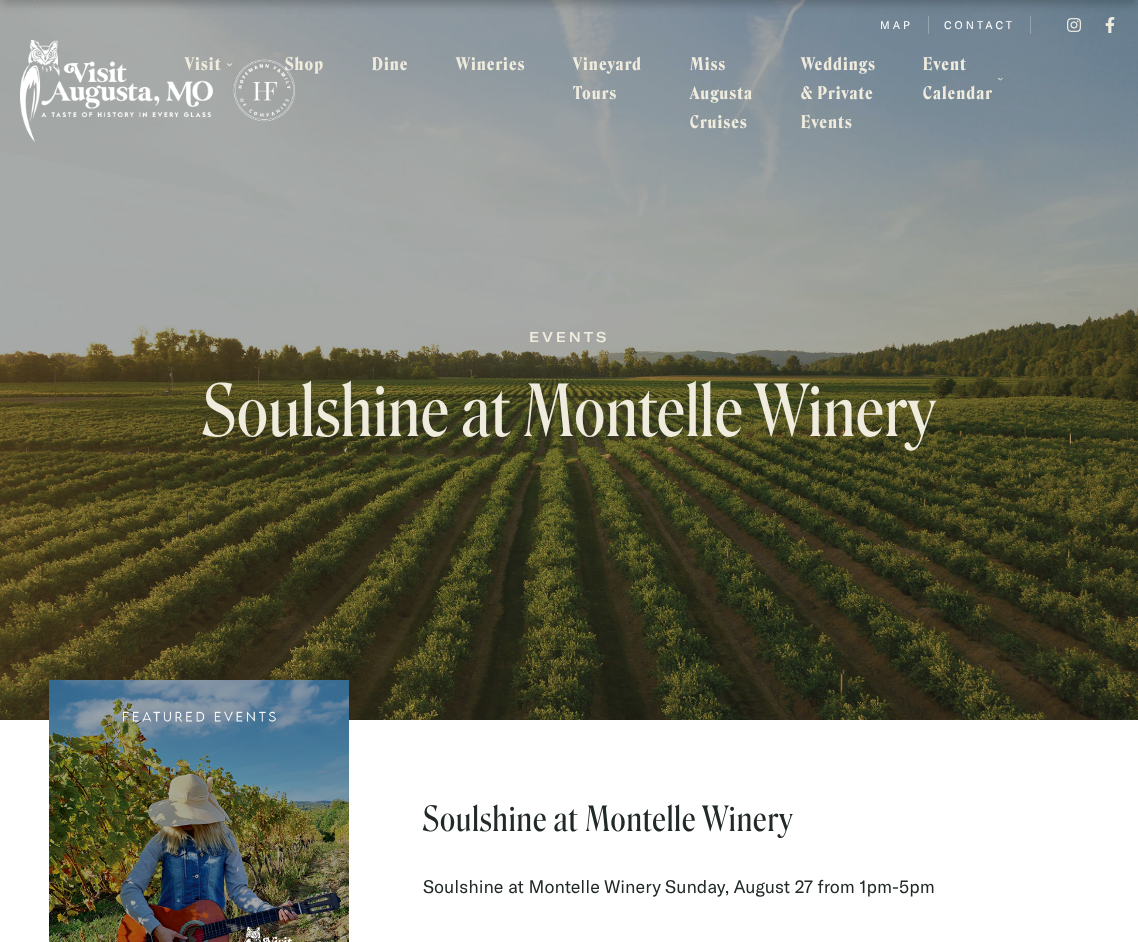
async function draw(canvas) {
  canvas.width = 1138
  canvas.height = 942
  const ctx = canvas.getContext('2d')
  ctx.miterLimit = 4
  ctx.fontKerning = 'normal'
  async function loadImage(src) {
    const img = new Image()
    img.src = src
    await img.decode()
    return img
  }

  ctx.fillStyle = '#fff'
  ctx.fillRect(0, 0, 1138, 942)
  ctx.drawImage(await loadImage('image3.png'), 0, 0, 1138, 720)
  ctx.fillStyle = '#96a4b0'
  ctx.fillRect(928, 16, 1, 18)
  ctx.fillStyle = '#ffffff42'
  ctx.fillRect(1030, 16, 1, 18)
  ctx.drawImage(await loadImage('image0.png'), 1067, 18, 14, 14)
  ctx.drawImage(await loadImage('image1.png'), 1105, 17, 10, 16)
  ctx.fillStyle = '#00000038'
  ctx.filter = 'blur(5px)'
  ctx.beginPath()
  ctx.rect(1, -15, 1136, 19)
  ctx.fill()
  ctx.filter = 'none'
  ctx.fillStyle = '#9ea1a0'
  ctx.fillRect(34, 0, 1, 1)
  ctx.letterSpacing = '3px'
  ctx.font = '11px GT America'
  ctx.fillStyle = '#fff'
  ctx.fillText('MAP', 880, 29)
  ctx.fillText('CONTACT', 944, 29)
  ctx.drawImage(await loadImage('image2.png'), 20, 40, 275, 102)
  ctx.letterSpacing = '1.5px'
  ctx.font = 'bold 17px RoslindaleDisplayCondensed'
  ctx.fillStyle = '#efecde'
  ctx.fillText('Visit', 185, 70)
  ctx.beginPath()
  ctx.moveTo(232.5, 63.5)
  ctx.lineTo(229.5, 66.5)
  ctx.lineTo(229.5, 65)
  ctx.lineTo(231, 63.5)
  ctx.closePath()
  ctx.fill()
  ctx.beginPath()
  ctx.moveTo(229.5, 66.5)
  ctx.lineTo(226.5, 63.5)
  ctx.lineTo(228, 63.5)
  ctx.lineTo(229.5, 65)
  ctx.closePath()
  ctx.fill()
  ctx.fillText('Shop', 285, 70)
  ctx.fillText('Dine', 372, 70)
  ctx.fillText('Wineries', 456, 70)
  ctx.fillText('Vineyard', 573, 70)
  ctx.fillText('Tours', 573, 99)
  ctx.fillText('Miss', 690, 70)
  ctx.fillText('Augusta', 690, 99)
  ctx.fillText('Cruises', 690, 128)
  ctx.fillText('Weddings', 801, 70)
  ctx.fillText('& Private', 801, 99)
  ctx.fillText('Events', 801, 128)
  ctx.fillText('Event', 923, 70)
  ctx.fillText('Calendar', 923, 99)
  ctx.beginPath()
  ctx.moveTo(1003, 78)
  ctx.lineTo(1000.5, 80.5)
  ctx.lineTo(1000.5, 79.5)
  ctx.lineTo(1002, 78)
  ctx.closePath()
  ctx.fill()
  ctx.beginPath()
  ctx.moveTo(1000.5, 80.5)
  ctx.lineTo(997.5, 78)
  ctx.lineTo(999, 78)
  ctx.lineTo(1000.5, 79.5)
  ctx.closePath()
  ctx.fill()
  ctx.letterSpacing = '3px'
  ctx.font = '500 14px GT America'
  ctx.fillText('EVENTS', 529, 342)
  ctx.letterSpacing = '1px'
  ctx.font = '70px Roslindale Display Condensed'
  ctx.fillText('Soulshine at Montelle Winery', 203, 436)
  ctx.drawImage(await loadImage('image4.png'), 49, 680, 300, 262)
  ctx.font = '34px Roslindale Display Condensed'
  ctx.fillStyle = '#212a27'
  ctx.fillText('Soulshine at Montelle Winery', 423, 831)
  ctx.letterSpacing = '0px'
  ctx.font = '18px GT America'
  ctx.fillText('Soulshine at Montelle Winery Sunday, August 27 from 1pm-5pm', 423, 893)
}

draw(document.querySelector('canvas'))
